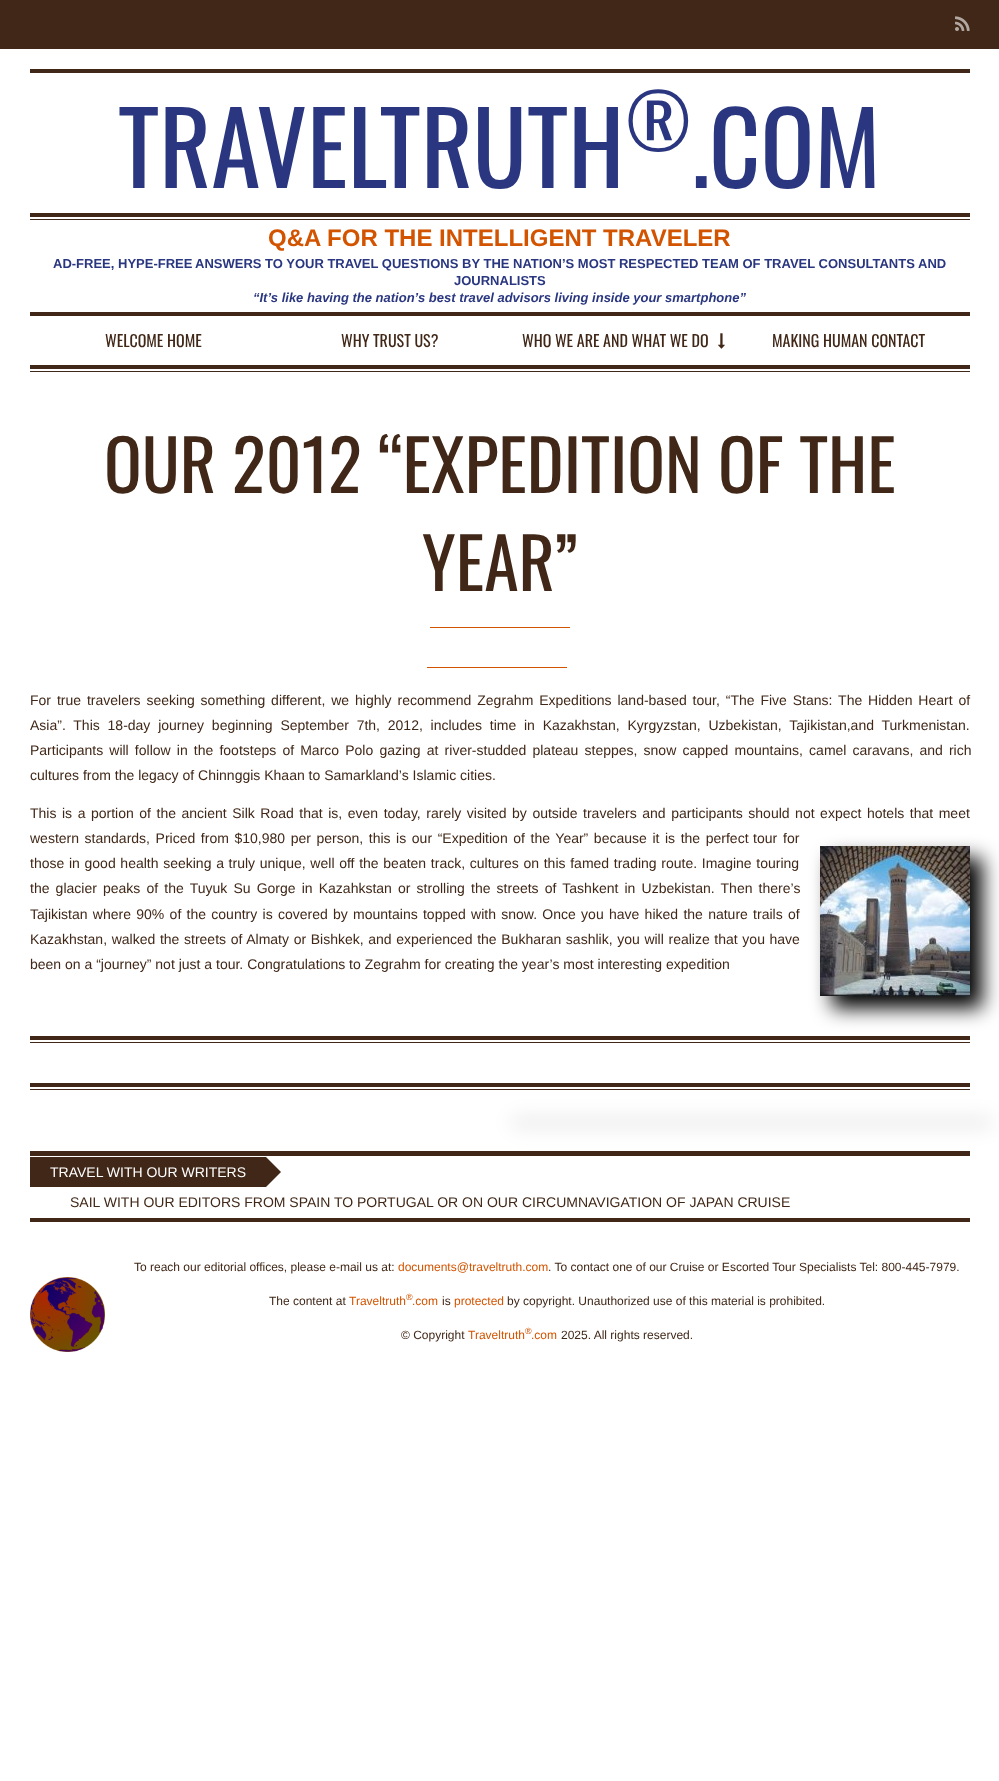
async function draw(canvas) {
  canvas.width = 999
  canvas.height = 1781
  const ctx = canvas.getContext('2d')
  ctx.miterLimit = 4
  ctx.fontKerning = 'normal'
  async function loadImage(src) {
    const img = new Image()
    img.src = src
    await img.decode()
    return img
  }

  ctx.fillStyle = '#fff'
  ctx.fillRect(0, 0, 999, 1781)
  ctx.fillStyle = '#402717'
  ctx.fillRect(0, 0, 999, 49)
  ctx.drawImage(await loadImage('image0.png'), 955, 16, 15, 15)
  ctx.fillRect(30, 69, 940, 4)
  ctx.fillRect(30, 312, 940, 4)
  ctx.fillRect(30, 213, 940, 4)
  ctx.font = '100px Oswald'
  ctx.fillStyle = '#2a3780'
  ctx.fillText('TRAVELTRUTH', 118, 188)
  ctx.font = '75px Oswald'
  ctx.fillText('®', 625, 151)
  ctx.font = '100px Oswald'
  ctx.fillText('.COM', 691, 188)
  ctx.fillStyle = '#402717'
  ctx.fillRect(30, 219, 940, 1)
  ctx.font = 'bold 24px Liberation Sans'
  ctx.fillStyle = '#d35400'
  ctx.fillText('Q&A FOR THE INTELLIGENT TRAVELER', 268, 246)
  ctx.font = 'bold 13px Liberation Sans'
  ctx.fillStyle = '#2a3780'
  ctx.fillText('AD-FREE, HYPE-FREE', 53, 268)
  ctx.fillText('ANSWERS TO YOUR TRAVEL QUESTIONS BY THE NATION’S MOST RESPECTED TEAM OF TRAVEL CONSULTANTS AND', 195, 268)
  ctx.fillText('JOURNALISTS', 454, 285)
  ctx.font = 'italic bold 13px Liberation Sans'
  ctx.fillText('“It’s like having the nation’s best travel advisors living inside your smartphone”', 253, 302)
  ctx.fillStyle = '#402717'
  ctx.fillRect(30, 371, 940, 1)
  ctx.fillRect(30, 365, 940, 4)
  ctx.font = '16px Oswald'
  ctx.fillText('WELCOME HOME', 105, 347)
  ctx.fillText('WHY TRUST US?', 341, 347)
  ctx.fillText('WHO WE ARE AND WHAT WE DO', 522, 347)
  ctx.drawImage(await loadImage('image1.png'), 718, 333, 7, 16)
  ctx.fillText('MAKING HUMAN CONTACT', 772, 347)
  ctx.fillRect(30, 1083, 940, 4)
  ctx.font = '70px Oswald'
  ctx.fillText('OUR 2012 “EXPEDITION OF THE', 104, 493)
  ctx.fillText('YEAR”', 422, 591)
  ctx.fillStyle = '#d35400'
  ctx.fillRect(430, 627, 140, 1)
  ctx.fillRect(427, 667, 140, 1)
  ctx.wordSpacing = '2px'
  ctx.font = '14px Liberation Sans'
  ctx.fillStyle = '#402717'
  ctx.fillText('For true travelers seeking something different, we highly recommend Zegrahm Expeditions land-based tour, “The Five Stans: The Hidden Heart of', 30, 705)
  ctx.wordSpacing = '3.9px'
  ctx.fillText('Asia”. This 18-day journey beginning September 7th, 2012, includes time in Kazakhstan, Kyrgyzstan, Uzbekistan, Tajikistan,and Turkmenistan.', 30, 730)
  ctx.wordSpacing = '2.25px'
  ctx.fillText('Participants will follow in the footsteps of Marco Polo gazing at river-studded plateau steppes, snow capped mountains, camel caravans, and rich', 30, 755)
  ctx.wordSpacing = '0px'
  ctx.fillText('cultures from the legacy of Chinnggis Khaan to Samarkland’s Islamic cities.', 30, 780)
  ctx.wordSpacing = '1.65px'
  ctx.fillText('This is a portion of the ancient Silk Road that is, even today, rarely visited by outside travelers and participants should not expect hotels that meet', 30, 818)
  ctx.wordSpacing = '1.7px'
  ctx.fillText('western standards, Priced from $10,980 per person, this is our “Expedition of the Year” because it is the perfect', 30, 843)
  ctx.wordSpacing = '2px'
  ctx.fillText('tour for', 753, 843)
  ctx.fillStyle = '#000'
  ctx.filter = 'blur(10px)'
  ctx.beginPath()
  ctx.rect(832, 858, 150, 150)
  ctx.fill()
  ctx.filter = 'none'
  ctx.drawImage(await loadImage('image2.png'), 820, 846, 150, 150)
  ctx.wordSpacing = '0.8px'
  ctx.fillStyle = '#402717'
  ctx.fillText('those in good health seeking a truly unique, well off the beaten track, cultures on this famed trading route. Imagine touring', 30, 868)
  ctx.wordSpacing = '2.25px'
  ctx.fillText('the glacier peaks of the Tuyuk Su Gorge in Kazahkstan or strolling the streets of Tashkent in Uzbekistan. Then there’s', 30, 893)
  ctx.wordSpacing = '1.4px'
  ctx.fillText('Tajikistan where 90% of the country is covered by mountains topped with snow. Once you have hiked the nature trails of', 30, 919)
  ctx.wordSpacing = '0.75px'
  ctx.fillText('Kazakhstan, walked the streets of Almaty or Bishkek, and experienced the Bukharan sashlik, you will realize that you have', 30, 944)
  ctx.wordSpacing = '0px'
  ctx.fillText('been on a “journey” not just a tour. Congratulations to Zegrahm for creating the year’s most interesting expedition', 30, 969)
  ctx.fillRect(30, 1036, 940, 4)
  ctx.fillRect(30, 1042, 940, 1)
  ctx.fillRect(30, 1089, 940, 1)
  ctx.fillRect(30, 1151, 940, 5)
  ctx.fillStyle = '#000'
  ctx.filter = 'blur(10px)'
  ctx.beginPath()
  ctx.rect(512, 1122, 480, 1)
  ctx.fill()
  ctx.filter = 'none'
  ctx.fillStyle = '#402717'
  ctx.fillRect(30, 1218, 940, 4)
  ctx.fillRect(30, 1157, 236, 30)
  ctx.fillStyle = '#fff'
  ctx.fillText('TRAVEL WITH OUR WRITERS', 50, 1177)
  ctx.fillStyle = '#402717'
  ctx.beginPath()
  ctx.moveTo(266, 1187)
  ctx.lineTo(266, 1157)
  ctx.lineTo(281, 1172)
  ctx.closePath()
  ctx.fill()
  ctx.fillText('SAIL WITH OUR EDITORS FROM SPAIN TO PORTUGAL OR ON OUR CIRCUMNAVIGATION OF JAPAN CRUISE', 70, 1207)
  ctx.font = '12px Liberation Sans'
  ctx.fillText('To reach our editorial offices, please e-mail us at:', 134, 1271)
  ctx.fillStyle = '#d35400'
  ctx.fillText('documents@traveltruth.com', 398, 1271)
  ctx.fillStyle = '#402717'
  ctx.fillText('. To contact one of our Cruise or Escorted Tour Specialists Tel: 800-445-7979.', 548, 1271)
  ctx.drawImage(await loadImage('image3.png'), 30, 1277, 75, 75)
  ctx.fillText('The content at', 269, 1305)
  ctx.fillStyle = '#d35400'
  ctx.fillText('Traveltruth', 349, 1305)
  ctx.font = '9px Liberation Sans'
  ctx.fillText('®', 406, 1300)
  ctx.font = '12px Liberation Sans'
  ctx.fillText('.com', 412, 1305)
  ctx.fillStyle = '#402717'
  ctx.fillText('is', 442, 1305)
  ctx.fillStyle = '#d35400'
  ctx.fillText('protected', 454, 1305)
  ctx.fillStyle = '#402717'
  ctx.fillText('by copyright. Unauthorized use of this material is prohibited.', 507, 1305)
  ctx.fillText('© Copyright', 401, 1339)
  ctx.fillStyle = '#d35400'
  ctx.fillText('Traveltruth', 468, 1339)
  ctx.font = '9px Liberation Sans'
  ctx.fillText('®', 525, 1334)
  ctx.font = '12px Liberation Sans'
  ctx.fillText('.com', 531, 1339)
  ctx.fillStyle = '#402717'
  ctx.fillText('2025. All rights reserved.', 561, 1339)
}

draw(document.querySelector('canvas'))
